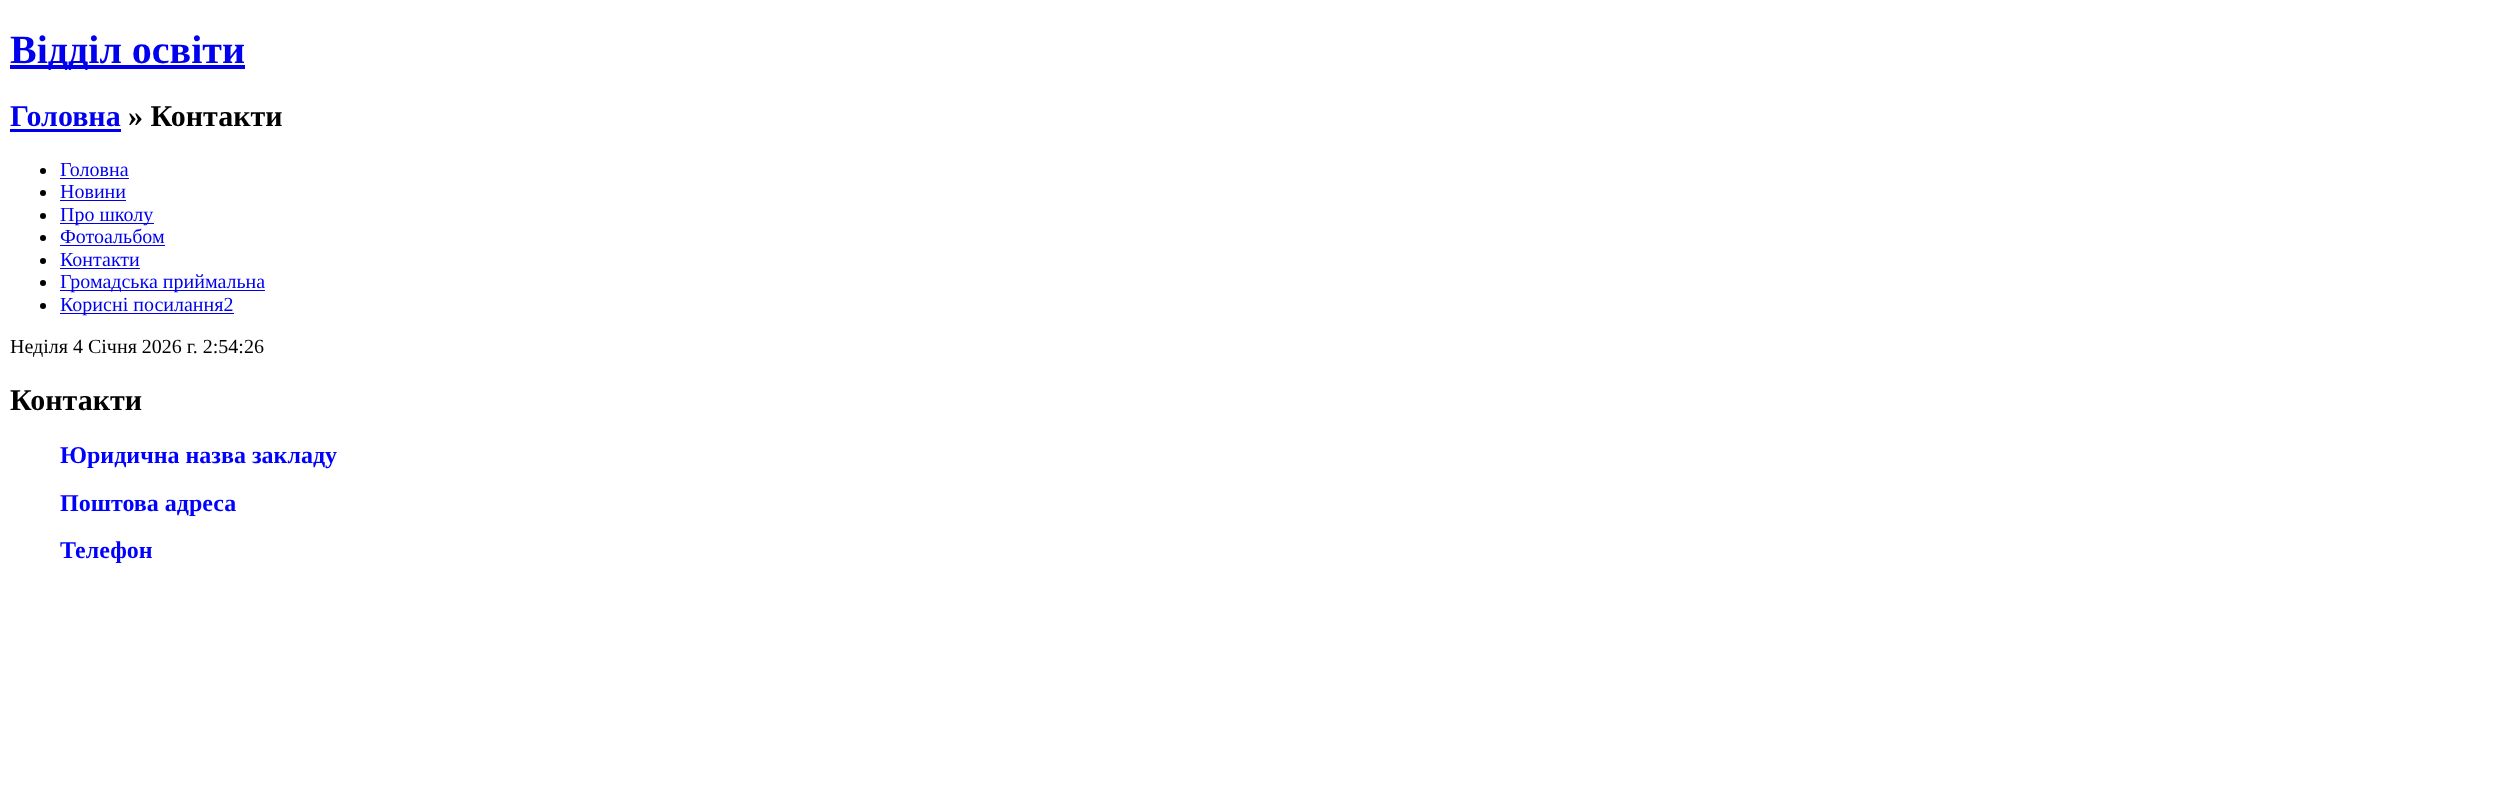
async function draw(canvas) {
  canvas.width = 2497
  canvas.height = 786
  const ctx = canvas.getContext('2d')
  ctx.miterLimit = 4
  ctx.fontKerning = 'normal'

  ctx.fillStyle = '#fff'
  ctx.fillRect(0, 0, 2497, 786)
  ctx.fillStyle = '#00e'
  ctx.fillRect(10, 65, 235, 4)
  ctx.font = 'bold 40px Liberation Serif'
  ctx.fillText('Відділ освіти', 10, 63)
  ctx.font = 'bold 30px Liberation Serif'
  ctx.fillText('Головна', 10, 126)
  ctx.fillRect(10, 129, 111, 3)
  ctx.fillStyle = '#000'
  ctx.fillText('» Контакти', 128, 126)
  ctx.beginPath()
  ctx.arc(43, 171, 3, 0, 2 * Math.PI)
  ctx.fill()
  ctx.font = '20px Liberation Serif'
  ctx.fillStyle = '#00e'
  ctx.fillText('Головна', 60, 176)
  ctx.fillRect(60, 178, 69, 1)
  ctx.fillStyle = '#000'
  ctx.beginPath()
  ctx.arc(43, 193, 3, 0, 2 * Math.PI)
  ctx.fill()
  ctx.fillStyle = '#00e'
  ctx.fillText('Новини', 60, 198)
  ctx.fillRect(60, 200, 66, 1)
  ctx.fillStyle = '#000'
  ctx.beginPath()
  ctx.arc(43, 216, 3, 0, 2 * Math.PI)
  ctx.fill()
  ctx.fillStyle = '#00e'
  ctx.fillRect(60, 223, 94, 1)
  ctx.fillText('Про школу', 60, 221)
  ctx.fillStyle = '#000'
  ctx.beginPath()
  ctx.arc(43, 238, 3, 0, 2 * Math.PI)
  ctx.fill()
  ctx.fillStyle = '#00e'
  ctx.fillText('Фотоальбом', 60, 243)
  ctx.fillRect(60, 245, 105, 1)
  ctx.fillStyle = '#000'
  ctx.beginPath()
  ctx.arc(43, 261, 3, 0, 2 * Math.PI)
  ctx.fill()
  ctx.fillStyle = '#00e'
  ctx.fillText('Контакти', 60, 266)
  ctx.fillRect(60, 268, 80, 1)
  ctx.fillStyle = '#000'
  ctx.beginPath()
  ctx.arc(43, 283, 3, 0, 2 * Math.PI)
  ctx.fill()
  ctx.fillStyle = '#00e'
  ctx.fillRect(60, 290, 205, 1)
  ctx.fillText('Громадська приймальна', 60, 288)
  ctx.fillStyle = '#000'
  ctx.beginPath()
  ctx.arc(43, 306, 3, 0, 2 * Math.PI)
  ctx.fill()
  ctx.fillStyle = '#00e'
  ctx.fillRect(60, 313, 174, 1)
  ctx.fillText('Корисні посилання2', 60, 311)
  ctx.fillStyle = '#000'
  ctx.fillText('Неділя 4 Січня 2026 г. 2:54:26', 10, 353)
  ctx.font = 'bold 30px Liberation Serif'
  ctx.fillText('Контакти', 10, 410)
  ctx.font = 'bold 24px Liberation Serif'
  ctx.fillStyle = '#00f'
  ctx.fillText('Юридична назва закладу', 60, 463)
  ctx.fillText('Поштова адреса', 60, 511)
  ctx.fillText('Телефон', 60, 558)
}

draw(document.querySelector('canvas'))
